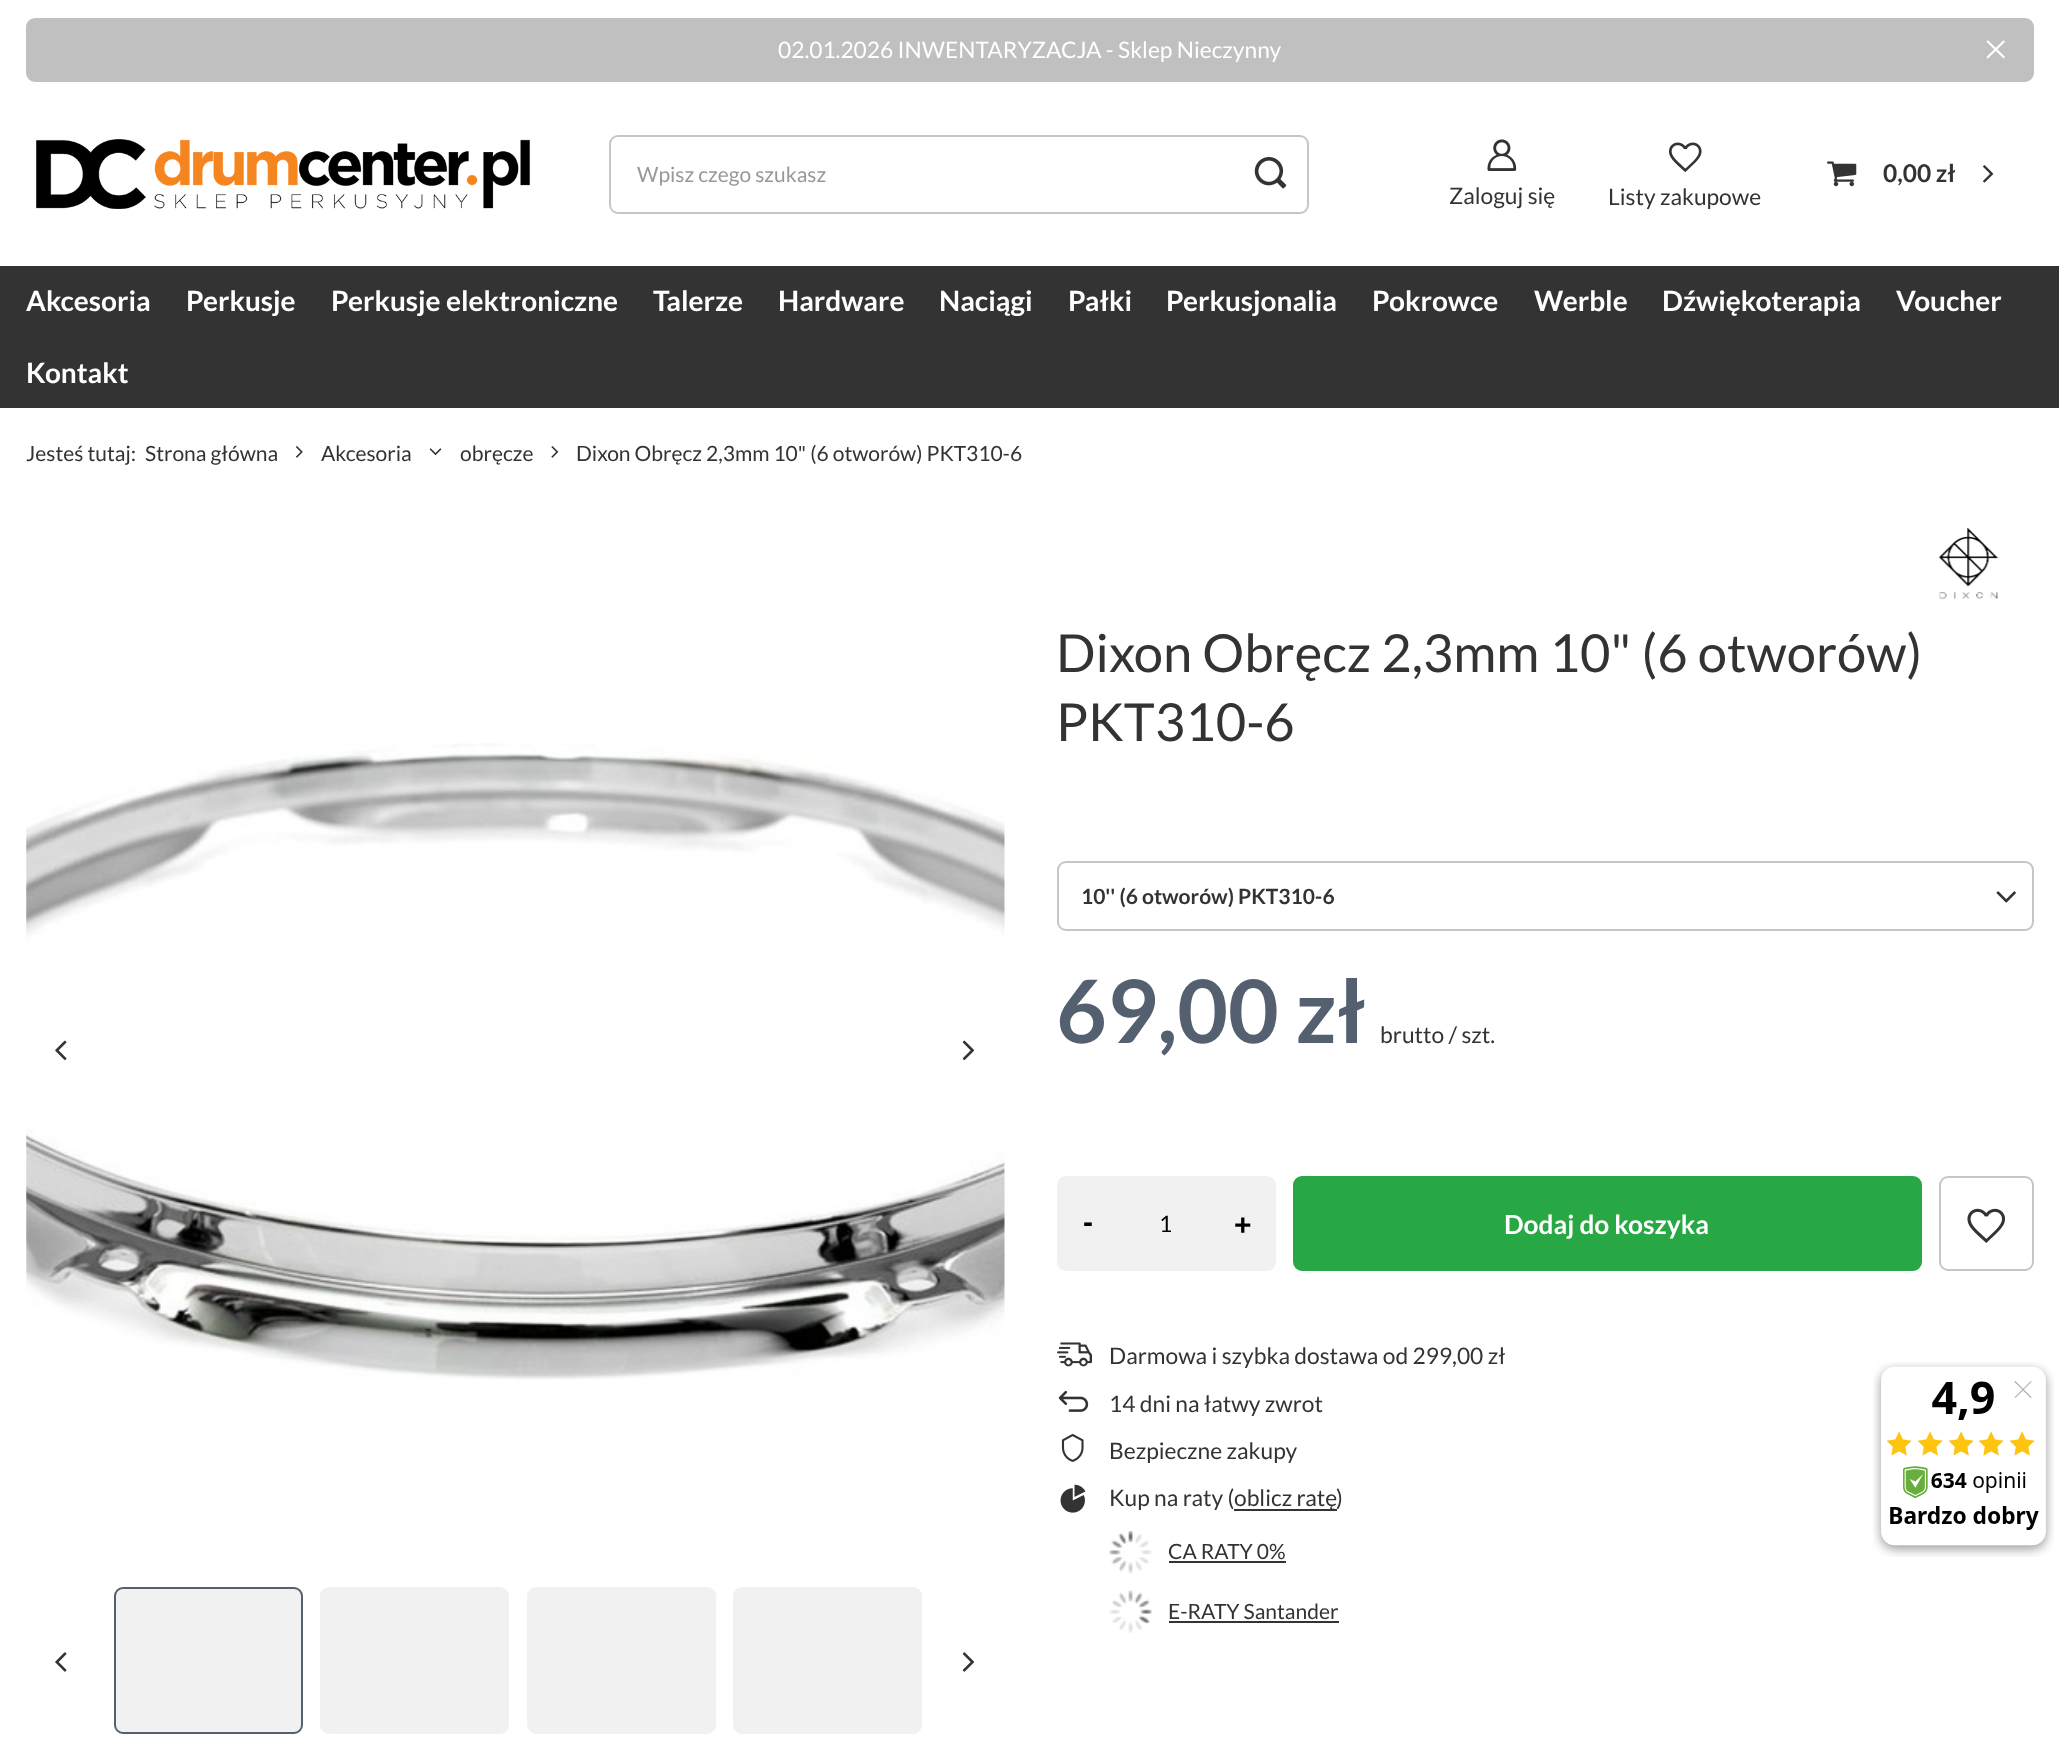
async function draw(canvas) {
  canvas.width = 2059
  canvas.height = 1741
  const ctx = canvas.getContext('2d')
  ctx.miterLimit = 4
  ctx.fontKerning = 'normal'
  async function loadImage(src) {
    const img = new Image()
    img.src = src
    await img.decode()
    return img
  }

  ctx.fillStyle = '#fff'
  ctx.fillRect(0, 0, 2059, 1741)
  ctx.fillStyle = '#c0c0c0'
  ctx.beginPath()
  ctx.roundRect(27, 19, 2006, 62, 8)
  ctx.fill()
  ctx.strokeStyle = '#c0c0c0'
  ctx.lineWidth = 2
  ctx.stroke()
  ctx.font = '22.75px Lato'
  ctx.fillStyle = '#fff'
  ctx.fillText('02.01.2026 INWENTARYZACJA - Sklep Nieczynny', 778, 58)
  ctx.drawImage(await loadImage('image0.png'), 1986, 40, 19, 19)
  ctx.drawImage(await loadImage('image1.png'), 36, 139, 494, 70)
  ctx.beginPath()
  ctx.roundRect(610, 136, 698, 77, 8)
  ctx.strokeStyle = '#c4c7c8'
  ctx.stroke()
  ctx.font = '21px Lato'
  ctx.fillStyle = '#989898'
  ctx.fillText('Wpisz czego szukasz', 637, 182)
  ctx.drawImage(await loadImage('image2.png'), 1254, 157, 33, 32)
  ctx.drawImage(await loadImage('image3.png'), 1827, 161, 30, 26)
  ctx.font = 'bold 24.5px Lato'
  ctx.fillStyle = '#333'
  ctx.fillText('0,00 zł', 1883, 182)
  ctx.drawImage(await loadImage('image4.png'), 1983, 165, 11, 18)
  ctx.drawImage(await loadImage('image5.png'), 1487, 139, 30, 32)
  ctx.font = '22.75px Lato'
  ctx.fillText('Zaloguj się', 1449, 204)
  ctx.drawImage(await loadImage('image6.png'), 1668, 142, 34, 31)
  ctx.fillText('Listy zakupowe', 1608, 205)
  ctx.fillRect(0, 266, 2059, 142)
  ctx.font = 'bold 28px Lato'
  ctx.fillStyle = '#fff'
  ctx.fillText('Akcesoria', 26, 311)
  ctx.fillText('Perkusje', 186, 311)
  ctx.fillText('Perkusje elektroniczne', 331, 311)
  ctx.fillText('Talerze', 653, 311)
  ctx.fillText('Hardware', 778, 311)
  ctx.fillText('Naciągi', 939, 311)
  ctx.fillText('Pałki', 1068, 311)
  ctx.fillText('Perkusjonalia', 1166, 311)
  ctx.fillText('Pokrowce', 1372, 311)
  ctx.fillText('Werble', 1534, 311)
  ctx.fillText('Dźwiękoterapia', 1662, 311)
  ctx.fillText('Voucher', 1896, 311)
  ctx.fillText('Kontakt', 26, 383)
  ctx.font = '21px Lato'
  ctx.fillStyle = '#333'
  ctx.fillText('Jesteś tutaj:', 26, 461)
  ctx.fillText('Strona główna', 145, 461)
  ctx.drawImage(await loadImage('image7.png'), 295, 446, 8, 12)
  ctx.fillText('Akcesoria', 321, 461)
  ctx.drawImage(await loadImage('image8.png'), 429, 448, 13, 8)
  ctx.fillText('obręcze', 460, 461)
  ctx.drawImage(await loadImage('image9.png'), 551, 446, 8, 12)
  ctx.fillText('Dixon Obręcz 2,3mm 10" (6 otworów) PKT310-6', 576, 461)
  ctx.drawImage(await loadImage('image10.png'), 1938, 527, 61, 73)
  ctx.font = '52.5px Lato'
  ctx.fillText('Dixon Obręcz 2,3mm 10" (6 otworów)', 1056, 672)
  ctx.fillText('PKT310-6', 1056, 741)
  ctx.drawImage(await loadImage('image11.png'), 26, 743, 979, 637)
  ctx.drawImage(await loadImage('image12.png'), 55, 1040, 12, 21)
  ctx.drawImage(await loadImage('image13.png'), 962, 1040, 13, 21)
  ctx.drawImage(await loadImage('image14.png'), 55, 1652, 12, 20)
  ctx.fillStyle = '#f1f1f1'
  ctx.beginPath()
  ctx.roundRect(115, 1588, 187, 145, 8)
  ctx.fill()
  ctx.strokeStyle = '#546070'
  ctx.stroke()
  ctx.beginPath()
  ctx.roundRect(321, 1588, 187, 145, 8)
  ctx.fill()
  ctx.strokeStyle = '#f1f1f1'
  ctx.stroke()
  ctx.beginPath()
  ctx.roundRect(528, 1588, 187, 145, 8)
  ctx.fill()
  ctx.stroke()
  ctx.beginPath()
  ctx.roundRect(734, 1588, 187, 145, 8)
  ctx.fill()
  ctx.stroke()
  ctx.drawImage(await loadImage('image15.png'), 962, 1652, 13, 20)
  ctx.beginPath()
  ctx.roundRect(1058, 862, 975, 68, 8)
  ctx.strokeStyle = '#c4c7c8'
  ctx.stroke()
  ctx.font = 'bold 21px Lato'
  ctx.fillStyle = '#333'
  ctx.fillText('10\'\' (6 otworów) PKT310-6', 1081, 904)
  ctx.drawImage(await loadImage('image16.png'), 1996, 891, 20, 12)
  ctx.font = 'bold 87.5px Lato'
  ctx.fillStyle = '#546070'
  ctx.fillText('69,00 zł', 1056, 1043)
  ctx.font = '22.75px Lato'
  ctx.fillStyle = '#333'
  ctx.fillText('brutto / szt.', 1380, 1043)
  ctx.fillStyle = '#f1f1f1'
  ctx.beginPath()
  ctx.roundRect(1057, 1176, 219, 95, 9)
  ctx.fill()
  ctx.font = 'bold 30px Liberation Sans'
  ctx.fillStyle = '#000'
  ctx.fillText('-', 1083, 1232)
  ctx.font = '22.75px Lato'
  ctx.fillText('1', 1159, 1232)
  ctx.font = 'bold 30px Liberation Sans'
  ctx.fillText('+', 1234, 1235)
  ctx.fillStyle = '#28a745'
  ctx.beginPath()
  ctx.roundRect(1294, 1177, 627, 93, 8)
  ctx.fill()
  ctx.strokeStyle = '#28a745'
  ctx.stroke()
  ctx.font = 'bold 26.25px Lato'
  ctx.fillStyle = '#fff'
  ctx.fillText('Dodaj do koszyka', 1504, 1234)
  ctx.beginPath()
  ctx.roundRect(1940, 1177, 93, 93, 8)
  ctx.strokeStyle = '#c4c7c8'
  ctx.stroke()
  ctx.drawImage(await loadImage('image17.png'), 1967, 1208, 38, 35)
  ctx.drawImage(await loadImage('image18.png'), 1057, 1342, 35, 25)
  ctx.font = '22.75px Lato'
  ctx.fillStyle = '#333'
  ctx.fillText('Darmowa i szybka dostawa od 299,00 zł', 1109, 1364)
  ctx.drawImage(await loadImage('image19.png'), 1058, 1390, 31, 22)
  ctx.fillText('14 dni na łatwy zwrot', 1109, 1412)
  ctx.drawImage(await loadImage('image20.png'), 1061, 1434, 23, 28)
  ctx.fillText('Bezpieczne zakupy', 1109, 1459)
  ctx.drawImage(await loadImage('image21.png'), 1060, 1484, 26, 29)
  ctx.fillText('Kup na raty (', 1109, 1506)
  ctx.fillRect(1234, 1509, 103, 2)
  ctx.fillText('oblicz ratę', 1234, 1506)
  ctx.fillText(')', 1336, 1506)
  ctx.drawImage(await loadImage('image22.png'), 1109, 1531, 43, 43)
  ctx.font = '21px Lato'
  ctx.fillText('CA RATY 0%', 1168, 1559)
  ctx.fillRect(1169, 1561, 117, 2)
  ctx.drawImage(await loadImage('image23.png'), 1109, 1590, 43, 43)
  ctx.fillText('E-RATY Santander', 1168, 1619)
  ctx.fillRect(1169, 1621, 170, 2)
  ctx.drawImage(await loadImage('image24.png'), 1873, 1362, 181, 195)
}

draw(document.querySelector('canvas'))
